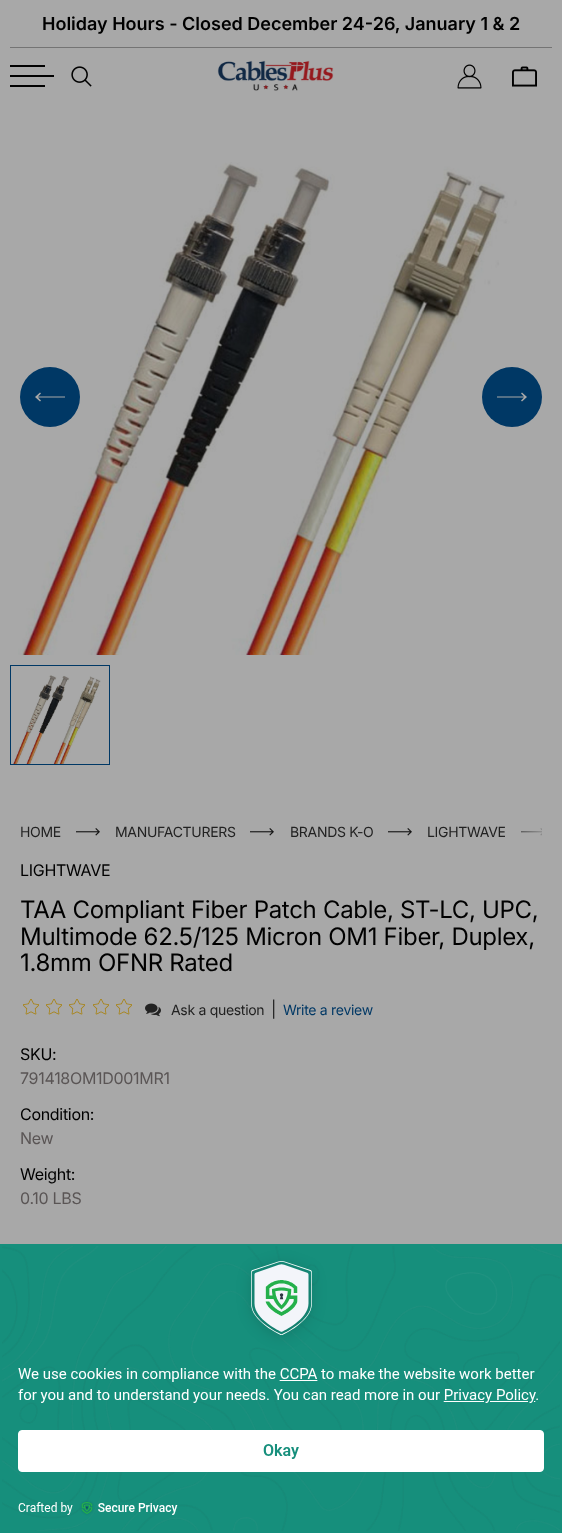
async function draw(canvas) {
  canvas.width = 562
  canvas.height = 1533
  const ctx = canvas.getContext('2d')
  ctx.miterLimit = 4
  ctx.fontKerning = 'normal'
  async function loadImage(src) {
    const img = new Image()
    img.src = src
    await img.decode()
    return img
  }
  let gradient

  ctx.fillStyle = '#a8a8a8'
  ctx.fillRect(0, 0, 562, 1533)
  ctx.fillStyle = '#747474'
  ctx.fillRect(10, 47, 542, 1)
  ctx.font = '600 18px Inter'
  ctx.fillStyle = '#000'
  ctx.fillText('Holiday Hours - Closed December 24-26, January 1 & 2', 42, 30)
  ctx.fillRect(10, 75, 44, 2)
  ctx.fillRect(10, 65, 35, 2)
  ctx.fillRect(10, 85, 35, 2)
  ctx.drawImage(await loadImage('image0.png'), 71, 66, 21, 21)
  ctx.drawImage(await loadImage('image1.png'), 217, 60, 117, 31)
  ctx.drawImage(await loadImage('image2.png'), 457, 64, 25, 25)
  ctx.drawImage(await loadImage('image3.png'), 512, 66, 25, 21)
  ctx.drawImage(await loadImage('image4.png'), 18, 162, 499, 493)
  ctx.fillStyle = '#003865'
  ctx.beginPath()
  ctx.arc(50, 397, 30, 0, 2 * Math.PI)
  ctx.fill()
  ctx.fillStyle = '#a8a8a8'
  ctx.beginPath()
  ctx.moveTo(65, 397.5)
  ctx.lineTo(38, 397.5)
  ctx.lineTo(41, 400.5)
  ctx.lineTo(40, 401.5)
  ctx.lineTo(35, 397)
  ctx.lineTo(40, 392.5)
  ctx.lineTo(41, 393.5)
  ctx.lineTo(38, 396.5)
  ctx.lineTo(65, 396.5)
  ctx.closePath()
  ctx.fill()
  ctx.fillStyle = '#003865'
  ctx.beginPath()
  ctx.arc(512, 397, 30, 0, 2 * Math.PI)
  ctx.fill()
  ctx.fillStyle = '#a8a8a8'
  ctx.beginPath()
  ctx.moveTo(497, 397.5)
  ctx.lineTo(524, 397.5)
  ctx.lineTo(521, 400.5)
  ctx.lineTo(522, 401.5)
  ctx.lineTo(527, 397)
  ctx.lineTo(522, 392.5)
  ctx.lineTo(521, 393.5)
  ctx.lineTo(524, 396.5)
  ctx.lineTo(497, 396.5)
  ctx.closePath()
  ctx.fill()
  ctx.strokeStyle = '#003865'
  ctx.strokeRect(10.5, 665.5, 99, 99)
  ctx.drawImage(await loadImage('image5.png'), 13, 675, 88, 89)
  ctx.letterSpacing = '-0.3px'
  ctx.font = '14px Inter'
  ctx.fillStyle = '#222'
  ctx.fillText('HOME', 20, 837)
  ctx.drawImage(await loadImage('image6.png'), 76, 828, 24, 8)
  ctx.fillText('MANUFACTURERS', 115, 837)
  ctx.drawImage(await loadImage('image6.png'), 250, 828, 24, 8)
  ctx.fillText('BRANDS K-O', 290, 837)
  ctx.drawImage(await loadImage('image6.png'), 388, 828, 24, 8)
  ctx.fillText('LIGHTWAVE', 427, 837)
  gradient = ctx.createLinearGradient(10, 839, 22, 839)
  gradient.addColorStop(0, '#a8a8a8')
  gradient.addColorStop(1, '#a8a8a800')
  ctx.fillStyle = gradient
  ctx.fillRect(21, 827, 1, 10)
  ctx.drawImage(await loadImage('image7.png'), 521, 828, 21, 8)
  gradient = ctx.createLinearGradient(502, 839, 552, 839)
  gradient.addColorStop(0, '#a8a8a800')
  gradient.addColorStop(1, '#a8a8a8')
  ctx.fillStyle = gradient
  ctx.fillRect(503, 827, 39, 10)
  ctx.font = '16px Inter'
  ctx.fillStyle = '#000'
  ctx.fillText('LIGHTWAVE', 20, 876)
  ctx.font = '24px Inter'
  ctx.fillText('TAA Compliant Fiber Patch Cable, ST-LC, UPC,', 20, 918)
  ctx.fillText('Multimode 62.5/125 Micron OM1 Fiber, Duplex,', 20, 945)
  ctx.fillText('1.8mm OFNR Rated', 20, 971)
  ctx.drawImage(await loadImage('image8.png'), 23, 999, 16, 16)
  ctx.drawImage(await loadImage('image8.png'), 46, 999, 16, 16)
  ctx.drawImage(await loadImage('image8.png'), 69, 999, 16, 16)
  ctx.drawImage(await loadImage('image8.png'), 93, 999, 16, 16)
  ctx.drawImage(await loadImage('image8.png'), 116, 999, 16, 16)
  ctx.drawImage(await loadImage('image9.png'), 145, 1003, 16, 14)
  ctx.font = '14px Inter'
  ctx.fillStyle = '#222'
  ctx.fillText('Ask a question', 171, 1015)
  ctx.font = '16px Inter'
  ctx.fillText('|', 271, 1015)
  ctx.font = '14px Inter'
  ctx.fillStyle = '#003865'
  ctx.fillText('Write a review', 283, 1015)
  ctx.font = '16px Inter'
  ctx.fillStyle = '#000'
  ctx.fillText('SKU:', 20, 1060)
  ctx.fillStyle = '#5a5555'
  ctx.fillText('791418OM1D001MR1', 20, 1084)
  ctx.fillStyle = '#000'
  ctx.fillText('Condition:', 20, 1120)
  ctx.fillStyle = '#5a5555'
  ctx.fillText('New', 20, 1144)
  ctx.fillStyle = '#000'
  ctx.fillText('Weight:', 20, 1180)
  ctx.fillStyle = '#5a5555'
  ctx.fillText('0.10 LBS', 20, 1204)
  ctx.drawImage(await loadImage('image10.png'), 0, 1244, 562, 289)
}

draw(document.querySelector('canvas'))
